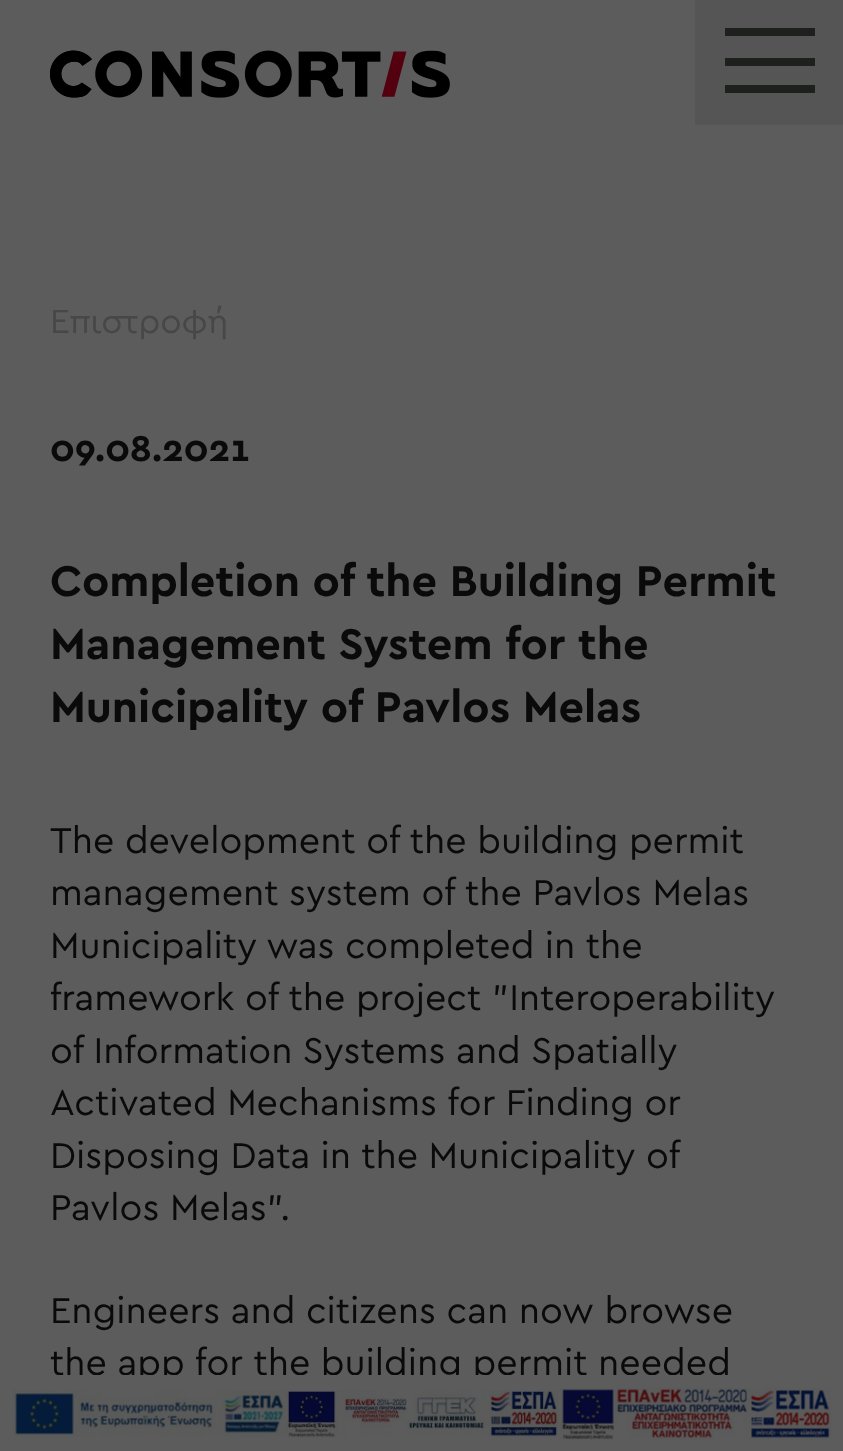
async function draw(canvas) {
  canvas.width = 843
  canvas.height = 1451
  const ctx = canvas.getContext('2d')
  ctx.miterLimit = 4
  ctx.fontKerning = 'normal'
  async function loadImage(src) {
    const img = new Image()
    img.src = src
    await img.decode()
    return img
  }

  ctx.fillStyle = '#5c5c5c'
  ctx.fillRect(0, 0, 843, 1451)
  ctx.drawImage(await loadImage('image0.png'), 50, 50, 400, 48)
  ctx.fillStyle = '#555'
  ctx.fillRect(695, 0, 148, 125)
  ctx.fillStyle = '#1e201d'
  ctx.fillRect(725, 28, 90, 8)
  ctx.fillRect(725, 58, 90, 8)
  ctx.fillRect(725, 85, 90, 8)
  ctx.font = '35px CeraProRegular'
  ctx.fillStyle = '#474747'
  ctx.fillText('Επιστροφή', 50, 333)
  ctx.font = 'bold 37.5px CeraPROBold'
  ctx.fillStyle = '#0a0a0a'
  ctx.fillText('09.08.2021', 50, 461)
  ctx.font = 'bold 45px CeraPROBold'
  ctx.fillText('Completion of the Building Permit', 50, 596)
  ctx.fillText('Management System for the', 50, 659)
  ctx.fillText('Municipality of Pavlos Melas', 50, 722)
  ctx.font = '37.5px CeraProRegular'
  ctx.fillText('The development of the building permit', 50, 853)
  ctx.fillText('management system of the Pavlos Melas', 50, 905)
  ctx.fillText('Municipality was completed in the', 50, 958)
  ctx.fillText('framework of the project "Interoperability', 50, 1010)
  ctx.fillText('of Information Systems and Spatially', 50, 1063)
  ctx.fillText('Activated Mechanisms for Finding or', 50, 1115)
  ctx.wordSpacing = '-0.25px'
  ctx.fillText('Disposing Data in the Municipality of', 50, 1168)
  ctx.wordSpacing = '0px'
  ctx.fillText('Pavlos Melas".', 50, 1220)
  ctx.fillText('Engineers and citizens can now browse', 50, 1323)
  ctx.fillText('the app for the building permit needed', 50, 1375)
  ctx.fillStyle = '#5c5c5c'
  ctx.fillRect(57, 1375, 664, 8)
  ctx.drawImage(await loadImage('image1.png'), 13, 1389, 273, 48)
  ctx.drawImage(await loadImage('image2.png'), 285, 1390, 274, 48)
  ctx.drawImage(await loadImage('image3.png'), 560, 1388, 272, 53)
}

draw(document.querySelector('canvas'))
